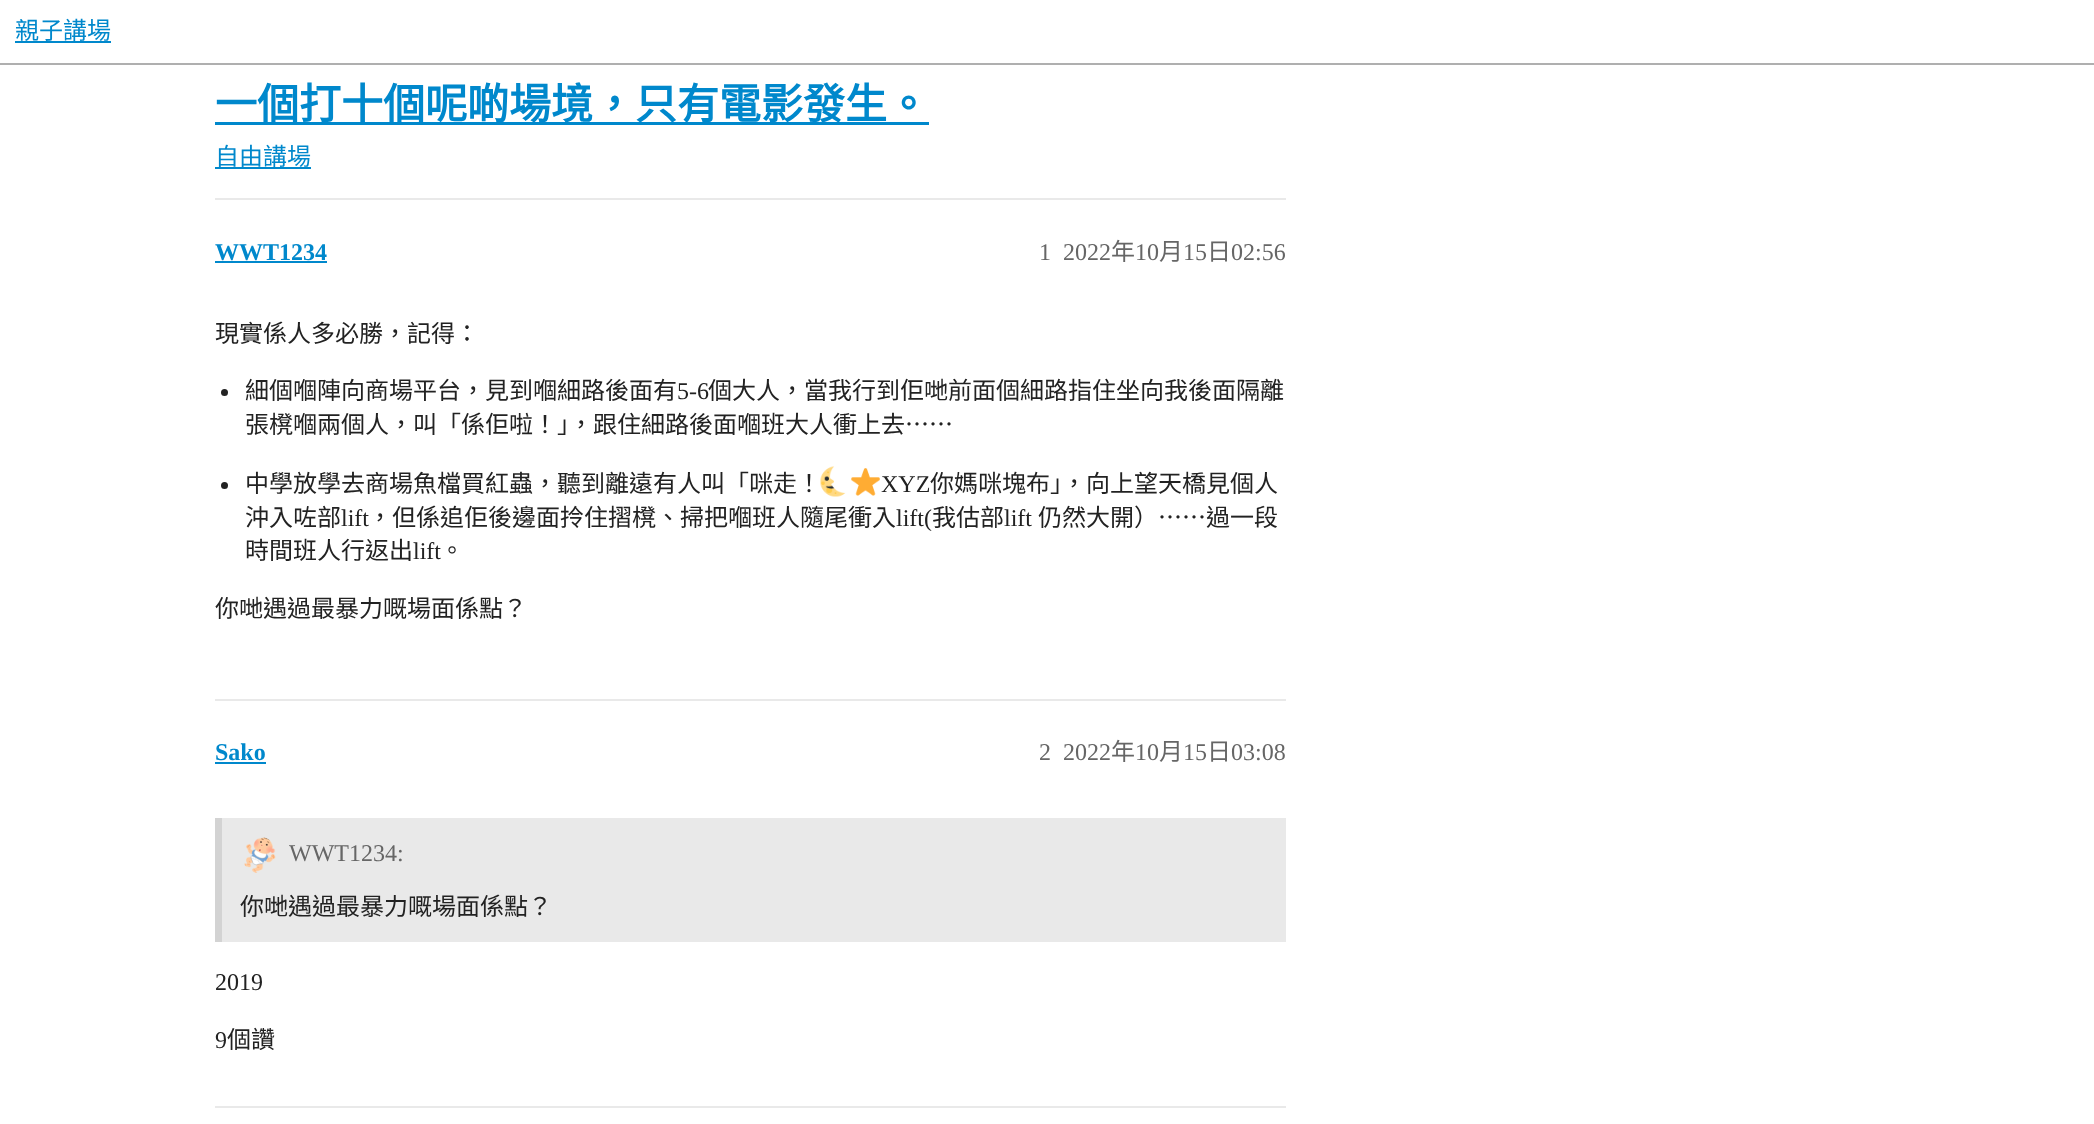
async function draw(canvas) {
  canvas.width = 2094
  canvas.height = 1124
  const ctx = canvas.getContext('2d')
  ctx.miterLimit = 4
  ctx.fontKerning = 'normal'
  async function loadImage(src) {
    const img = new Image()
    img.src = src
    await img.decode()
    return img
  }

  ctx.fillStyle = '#fff'
  ctx.fillRect(0, 0, 2094, 1124)
  ctx.fillStyle = '#afafaf'
  ctx.fillRect(0, 63, 2094, 2)
  ctx.font = '24px Noto Sans CJK TC'
  ctx.fillStyle = '#08c'
  ctx.fillText('親子講場', 15, 39)
  ctx.fillRect(15, 41, 96, 2)
  ctx.fillRect(215, 122, 714, 3)
  ctx.font = 'bold 42px Noto Sans CJK TC'
  ctx.fillText('一個打十個呢啲場境，只有電影發生。', 215, 119)
  ctx.font = '24px Noto Sans CJK TC'
  ctx.fillText('自由講場', 215, 165)
  ctx.fillRect(215, 167, 96, 2)
  ctx.fillStyle = '#e9e9e9'
  ctx.fillRect(215, 198, 1071, 2)
  ctx.font = 'bold 24px Liberation Serif'
  ctx.fillStyle = '#08c'
  ctx.fillText('WWT1234', 215, 260)
  ctx.fillRect(215, 261, 112, 2)
  ctx.font = '24px Liberation Serif'
  ctx.fillStyle = '#666'
  ctx.fillText('1', 1039, 260)
  ctx.fillText('2022', 1063, 260)
  ctx.font = '24px Noto Sans CJK TC'
  ctx.fillText('年', 1111, 260)
  ctx.font = '24px Liberation Serif'
  ctx.fillText('10', 1135, 260)
  ctx.font = '24px Noto Sans CJK TC'
  ctx.fillText('月', 1159, 260)
  ctx.font = '24px Liberation Serif'
  ctx.fillText('15', 1183, 260)
  ctx.font = '24px Noto Sans CJK TC'
  ctx.fillText('日', 1207, 260)
  ctx.font = '24px Liberation Serif'
  ctx.fillText('02:56', 1231, 260)
  ctx.font = '24px Noto Sans CJK TC'
  ctx.fillStyle = '#222'
  ctx.fillText('現實係人多必勝，記得：', 215, 342)
  ctx.beginPath()
  ctx.arc(224.5, 392.5, 3.5, 0, 2 * Math.PI)
  ctx.fill()
  ctx.fillText('細個嗰陣向商場平台，見到嗰細路後面有', 245, 399)
  ctx.font = '24px Liberation Serif'
  ctx.fillText('5-6', 677, 399)
  ctx.font = '24px Noto Sans CJK TC'
  ctx.fillText('個大人，當我行到佢哋前面個細路指住坐向我後面隔離', 708, 399)
  ctx.fillText('張櫈嗰兩個人，叫「係佢啦！」，跟住細路後面嗰班大人衝上去⋯⋯', 245, 433)
  ctx.beginPath()
  ctx.arc(224.5, 485.5, 3.5, 0, 2 * Math.PI)
  ctx.fill()
  ctx.fillText('中學放學去商場魚檔買紅蟲，聽到離遠有人叫「咪走！', 245, 492)
  ctx.drawImage(await loadImage('image0.png'), 820, 466, 26, 31)
  ctx.drawImage(await loadImage('image1.png'), 851, 468, 29, 28)
  ctx.font = '24px Liberation Serif'
  ctx.fillText('XYZ', 881, 492)
  ctx.font = '24px Noto Sans CJK TC'
  ctx.fillText('你媽咪塊布」，向上望天橋見個人', 930, 492)
  ctx.fillText('沖入咗部', 245, 526)
  ctx.font = '24px Liberation Serif'
  ctx.fillText('lift', 341, 526)
  ctx.font = '24px Noto Sans CJK TC'
  ctx.fillText('，但係追佢後邊面拎住摺櫈、掃把嗰班人隨尾衝入', 368, 526)
  ctx.font = '24px Liberation Serif'
  ctx.fillText('lift(', 896, 526)
  ctx.font = '24px Noto Sans CJK TC'
  ctx.fillText('我估部', 932, 526)
  ctx.font = '24px Liberation Serif'
  ctx.fillText('lift', 1004, 526)
  ctx.font = '24px Noto Sans CJK TC'
  ctx.fillText('仍然大開）⋯⋯過一段', 1038, 526)
  ctx.fillText('時間班人行返出', 245, 559)
  ctx.font = '24px Liberation Serif'
  ctx.fillText('lift', 413, 559)
  ctx.font = '24px Noto Sans CJK TC'
  ctx.fillText('。', 440, 559)
  ctx.fillText('你哋遇過最暴力嘅場面係點？', 215, 617)
  ctx.fillStyle = '#e9e9e9'
  ctx.fillRect(215, 699, 1071, 2)
  ctx.font = 'bold 24px Liberation Serif'
  ctx.fillStyle = '#08c'
  ctx.fillText('Sako', 215, 760)
  ctx.fillRect(215, 762, 51, 2)
  ctx.font = '24px Liberation Serif'
  ctx.fillStyle = '#666'
  ctx.fillText('2', 1039, 760)
  ctx.fillText('2022', 1063, 760)
  ctx.font = '24px Noto Sans CJK TC'
  ctx.fillText('年', 1111, 760)
  ctx.font = '24px Liberation Serif'
  ctx.fillText('10', 1135, 760)
  ctx.font = '24px Noto Sans CJK TC'
  ctx.fillText('月', 1159, 760)
  ctx.font = '24px Liberation Serif'
  ctx.fillText('15', 1183, 760)
  ctx.font = '24px Noto Sans CJK TC'
  ctx.fillText('日', 1207, 760)
  ctx.font = '24px Liberation Serif'
  ctx.fillText('03:08', 1231, 760)
  ctx.fillStyle = '#e9e9e9'
  ctx.fillRect(222, 818, 1064, 124)
  ctx.fillStyle = '#d3d3d3'
  ctx.fillRect(215, 818, 7, 124)
  ctx.drawImage(await loadImage('image2.png'), 244, 837, 32, 36)
  ctx.fillStyle = '#666'
  ctx.fillText('WWT1234:', 289, 861)
  ctx.font = '24px Noto Sans CJK TC'
  ctx.fillStyle = '#222'
  ctx.fillText('你哋遇過最暴力嘅場面係點？', 240, 915)
  ctx.font = '24px Liberation Serif'
  ctx.fillText('2019', 215, 990)
  ctx.fillText('9', 215, 1048)
  ctx.font = '24px Noto Sans CJK TC'
  ctx.fillText('個讚', 227, 1048)
  ctx.fillStyle = '#e9e9e9'
  ctx.fillRect(215, 1106, 1071, 2)
}

draw(document.querySelector('canvas'))
